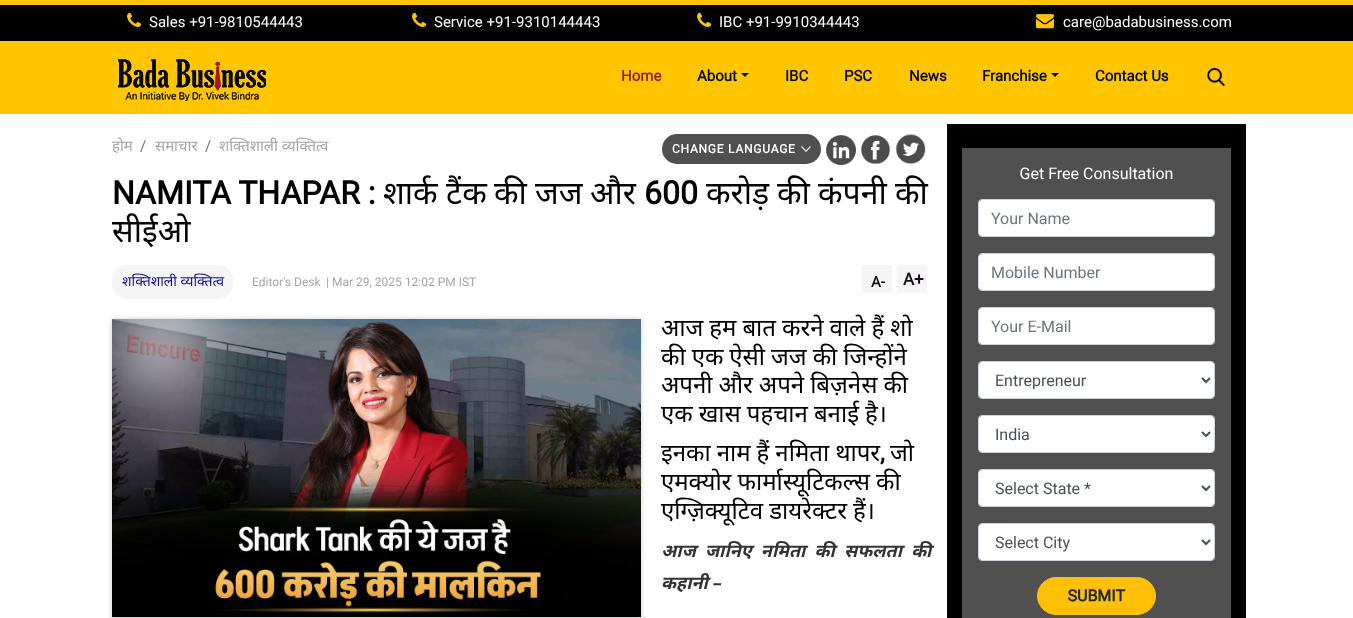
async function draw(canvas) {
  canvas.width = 1353
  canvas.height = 618
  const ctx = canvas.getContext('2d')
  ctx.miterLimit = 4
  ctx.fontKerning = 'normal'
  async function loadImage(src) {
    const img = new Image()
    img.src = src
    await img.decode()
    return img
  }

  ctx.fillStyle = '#fff'
  ctx.fillRect(0, 0, 1353, 618)
  ctx.fillStyle = '#ffc600'
  ctx.fillRect(0, 0, 1353, 5)
  ctx.fillStyle = '#010101'
  ctx.fillRect(0, 5, 1353, 36)
  ctx.drawImage(await loadImage('image0.png'), 127, 12, 15, 15)
  ctx.font = '15px Roboto'
  ctx.fillStyle = '#fff'
  ctx.fillText('Sales +91-9810544443', 149, 27)
  ctx.drawImage(await loadImage('image0.png'), 412, 12, 15, 15)
  ctx.fillText('Service +91-9310144443', 434, 27)
  ctx.drawImage(await loadImage('image0.png'), 697, 12, 15, 15)
  ctx.fillText('IBC +91-9910344443', 719, 27)
  ctx.drawImage(await loadImage('image1.png'), 1036, 14, 18, 15)
  ctx.fillText('care@badabusiness.com', 1063, 27)
  ctx.fillStyle = '#ffc600'
  ctx.fillRect(0, 41, 1353, 73)
  ctx.drawImage(await loadImage('image2.png'), 118, 59, 148, 42)
  ctx.font = 'bold 15px Roboto'
  ctx.fillStyle = '#991b1e'
  ctx.fillText('Home', 621, 81)
  ctx.fillStyle = '#050708'
  ctx.fillText('About', 697, 81)
  ctx.beginPath()
  ctx.moveTo(741, 73)
  ctx.lineTo(749, 73)
  ctx.lineTo(745, 77)
  ctx.closePath()
  ctx.fill()
  ctx.fillText('IBC', 785, 81)
  ctx.fillText('PSC', 844, 81)
  ctx.fillText('News', 909, 81)
  ctx.fillText('Franchise', 982, 81)
  ctx.beginPath()
  ctx.moveTo(1051, 73)
  ctx.lineTo(1059, 73)
  ctx.lineTo(1055, 77)
  ctx.closePath()
  ctx.fill()
  ctx.fillText('Contact Us', 1095, 81)
  ctx.drawImage(await loadImage('image3.png'), 1207, 68, 18, 18)
  ctx.font = '15px Noto Sans'
  ctx.fillStyle = '#a5a4a5'
  ctx.fillText('होम', 112, 151)
  ctx.font = '15px Roboto'
  ctx.fillStyle = '#6c757d'
  ctx.fillText('/', 140, 151)
  ctx.font = '15px Noto Sans'
  ctx.fillStyle = '#a5a4a5'
  ctx.fillText('समाचार', 155, 151)
  ctx.font = '15px Roboto'
  ctx.fillStyle = '#6c757d'
  ctx.fillText('/', 205, 151)
  ctx.font = '15px Noto Sans'
  ctx.fillStyle = '#a5a4a5'
  ctx.fillText('शक्तिशाली व्यक्तित्व', 219, 151)
  ctx.fillStyle = '#505050'
  ctx.beginPath()
  ctx.roundRect(662, 134, 159, 30, 15)
  ctx.fill()
  ctx.letterSpacing = '0.75px'
  ctx.font = 'bold 12px Roboto'
  ctx.fillStyle = '#fff'
  ctx.fillText('CHANGE LANGUAGE', 672, 153)
  ctx.drawImage(await loadImage('image4.png'), 801, 146, 10, 6)
  ctx.drawImage(await loadImage('image5.png'), 826, 135, 30, 30)
  ctx.drawImage(await loadImage('image6.png'), 861, 135, 30, 29)
  ctx.drawImage(await loadImage('image7.png'), 896, 134, 30, 30)
  ctx.letterSpacing = '0px'
  ctx.font = 'bold 32px Roboto'
  ctx.fillStyle = '#000'
  ctx.fillText('NAMITA THAPAR :', 112, 204)
  ctx.font = '32px Noto Sans'
  ctx.fillText('शार्क', 383, 204)
  ctx.fillText('टैंक', 446, 204)
  ctx.fillText('की', 494, 204)
  ctx.fillText('जज', 535, 204)
  ctx.fillText('और', 590, 204)
  ctx.font = 'bold 32px Roboto'
  ctx.fillText('600', 644, 204)
  ctx.font = '32px Noto Sans'
  ctx.fillText('करोड़', 706, 204)
  ctx.fillText('की', 777, 204)
  ctx.fillText('कंपनी', 818, 204)
  ctx.fillText('की', 895, 204)
  ctx.fillText('सीईओ', 112, 242)
  ctx.fillStyle = '#f5f5f5'
  ctx.beginPath()
  ctx.roundRect(112, 265, 121, 34, 15)
  ctx.fill()
  ctx.font = '14px Noto Sans'
  ctx.fillStyle = '#0c109b'
  ctx.fillText('शक्तिशाली व्यक्तित्व', 122, 286)
  ctx.font = '12px Roboto'
  ctx.fillStyle = '#a5a4a5'
  ctx.fillText('Editor\'s Desk', 252, 286)
  ctx.fillText('|', 326, 286)
  ctx.fillText('Mar 29, 2025 12:02 PM IST', 332, 286)
  ctx.fillStyle = '#f5f5f5'
  ctx.fillRect(862, 265, 30, 28)
  ctx.font = 'bold 15px Roboto'
  ctx.fillStyle = '#180d1b'
  ctx.fillText('A-', 871, 287)
  ctx.fillStyle = '#f5f5f5'
  ctx.fillRect(897, 265, 30, 28)
  ctx.font = 'bold 17px Roboto'
  ctx.fillStyle = '#180d1b'
  ctx.fillText('A+', 903, 285)
  ctx.fillStyle = '#ccc'
  ctx.filter = 'blur(2.5px)'
  ctx.beginPath()
  ctx.rect(112, 319, 529, 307)
  ctx.fill()
  ctx.filter = 'none'
  ctx.drawImage(await loadImage('image8.png'), 112, 319, 529, 298)
  ctx.wordSpacing = '-0.25px'
  ctx.font = '24px Noto Sans'
  ctx.fillStyle = '#000'
  ctx.fillText('आज हम बात करने वाले हैं शो', 661, 336)
  ctx.fillText('की एक ऐसी जज की जिन्होंने', 661, 365)
  ctx.fillText('अपनी और अपने बिज़नेस की', 661, 393)
  ctx.fillText('एक खास पहचान बनाई है।', 661, 422)
  ctx.fillText('इनका नाम हैं नमिता थापर', 661, 461)
  ctx.wordSpacing = '0px'
  ctx.font = 'bold 24px Roboto'
  ctx.fillText(',', 880, 461)
  ctx.font = '24px Noto Sans'
  ctx.fillText('जो', 890, 461)
  ctx.wordSpacing = '-0.25px'
  ctx.fillText('एमक्योर फार्मास्यूटिकल्स की', 661, 490)
  ctx.fillText('एग्ज़िक्यूटिव डायरेक्टर हैं।', 661, 519)
  ctx.wordSpacing = '4.5px'
  ctx.font = 'italic bold 18px Noto Sans'
  ctx.fillStyle = '#333'
  ctx.fillText('आज जानिए नमिता की सफलता की', 661, 557)
  ctx.wordSpacing = '-1px'
  ctx.fillText('कहानी –', 661, 589)
  ctx.drawImage(await loadImage('image9.png'), 947, 124, 299, 494)
}

draw(document.querySelector('canvas'))
